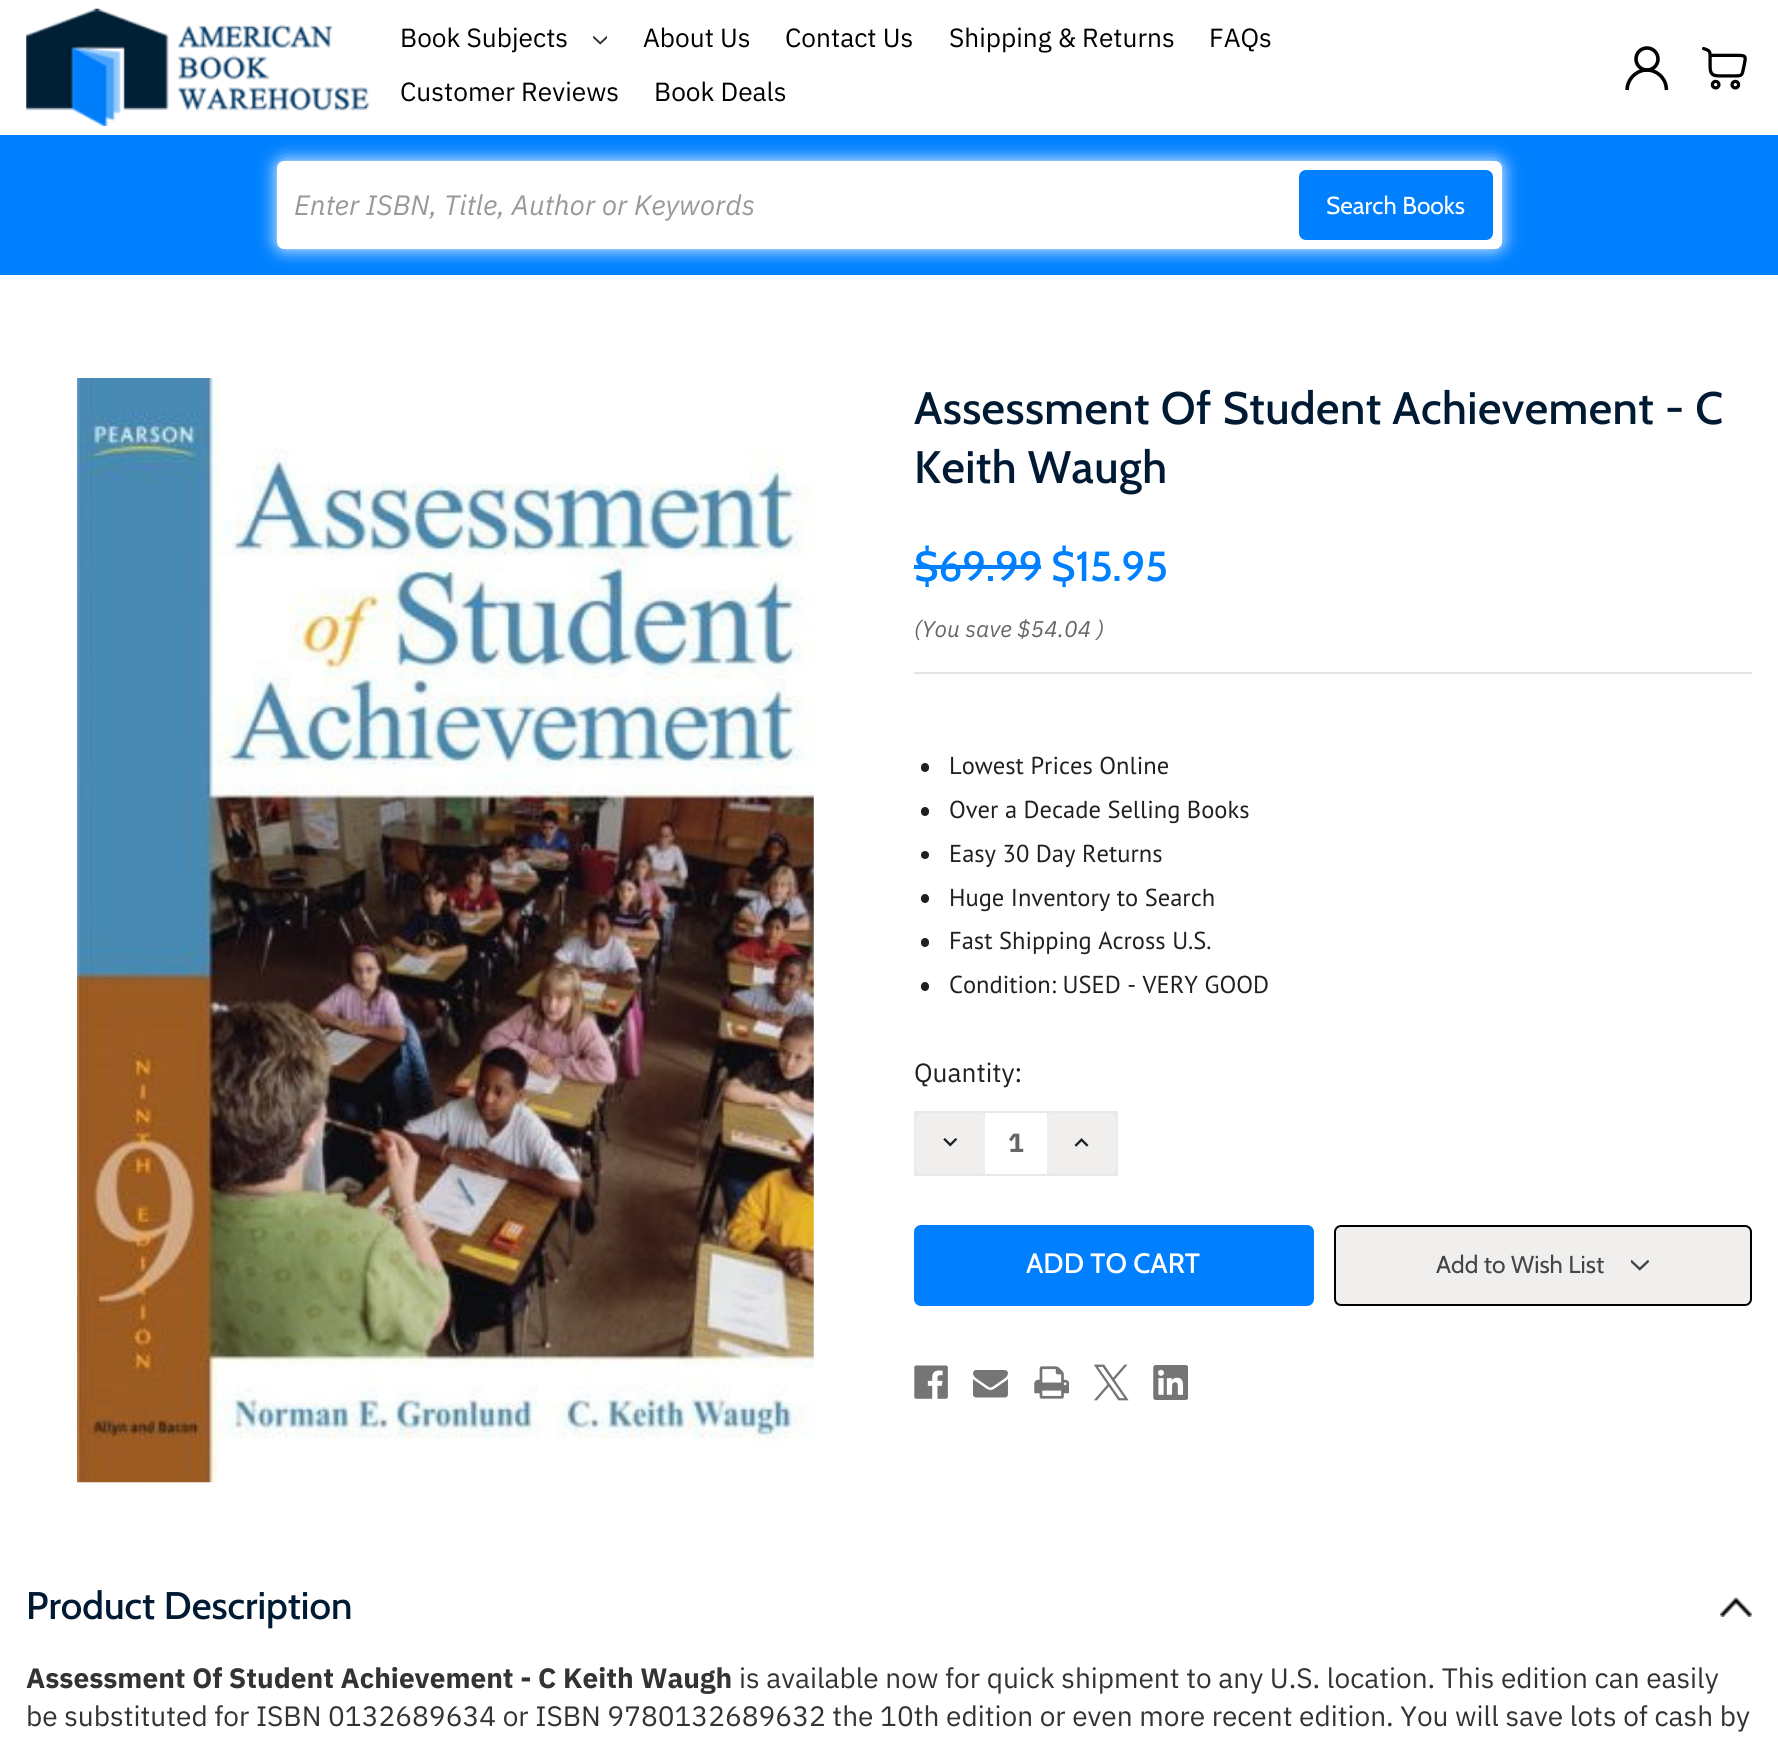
#include <cairo.h>
#include <math.h>
#include <stddef.h>


static void set_color(cairo_t *cr, unsigned color) {
    cairo_set_source_rgb(cr, (color >> 16) / 255.0, (color >> 8 & 255) / 255.0, (color & 255) / 255.0);
}

static void draw_text(cairo_t *cr, double x, double y, const char *s, const char *family, double size, int italic, int bold, unsigned color) {
    cairo_select_font_face(cr, family, italic ? CAIRO_FONT_SLANT_ITALIC : CAIRO_FONT_SLANT_NORMAL,
        bold ? CAIRO_FONT_WEIGHT_BOLD : CAIRO_FONT_WEIGHT_NORMAL);
    cairo_set_font_size(cr, size);
    set_color(cr, color);
    cairo_move_to(cr, x, y);
    cairo_show_text(cr, s);
}

static void draw_spaced(cairo_t *cr, double x, double y, const char *s, double letter, double word) {
    cairo_move_to(cr, x, y);
    while (*s) {
        char ch[5] = {0};
        int n = 0;
        do ch[n++] = *s++; while ((*s & 0xC0) == 0x80);
        cairo_show_text(cr, ch);
        cairo_rel_move_to(cr, letter + word * (*ch == ' '), 0);
    }
}

static void fill_rect(cairo_t *cr, double x, double y, double w, double h, unsigned color) {
    set_color(cr, color);
    cairo_rectangle(cr, x, y, w, h);
    cairo_fill(cr);
}

static void rounded_rect(cairo_t *cr, double x, double y, double w, double h, double r) {
    cairo_new_sub_path(cr);
    cairo_arc(cr, x + w - r, y + h - r, r, 0, M_PI / 2);
    cairo_arc(cr, x + r, y + h - r, r, M_PI / 2, M_PI);
    cairo_arc(cr, x + r, y + r, r, M_PI, 1.5 * M_PI);
    cairo_arc(cr, x + w - r, y + r, r, 1.5 * M_PI, 2 * M_PI);
    cairo_close_path(cr);
}

static void draw_shadow(cairo_t *cr, double x, double y, double w, double h, double r, double blur, double alpha) {
    cairo_push_group_with_content(cr, CAIRO_CONTENT_ALPHA);
    cairo_set_operator(cr, CAIRO_OPERATOR_SOURCE);
    for (int i = 15; i >= -15 && fmin(w, h) + blur * i / 3 > 0; i -= 2) {
        double e = blur * i / 6;
        cairo_set_source_rgba(cr, 0, 0, 0, alpha * erfc((i - 1) / 8.5) / 2);
        rounded_rect(cr, x - e, y - e, w + 2 * e, h + 2 * e, fmax(0, fmin(r + e + blur * .6, fmin(w, h) / 2 + e)));
        cairo_fill(cr);
    }
    cairo_pattern_t *soft = cairo_pop_group(cr);
    cairo_mask(cr, soft);
    cairo_pattern_destroy(soft);
}

static void draw_image(cairo_t *cr, const char *path, double x, double y, double w, double h) {
    cairo_surface_t *image = cairo_image_surface_create_from_png(path);
    cairo_save(cr);
    cairo_set_source_surface(cr, image, x, y);
    cairo_rectangle(cr, x, y, w, h);
    cairo_fill(cr);
    cairo_restore(cr);
    cairo_surface_destroy(image);
}

int main(void) {
    cairo_surface_t *surface = cairo_image_surface_create(CAIRO_FORMAT_RGB24, 1778, 1742);
    cairo_t *cr = cairo_create(surface);
    cairo_font_options_t *options = cairo_font_options_create();
    cairo_font_options_set_hint_metrics(options, CAIRO_HINT_METRICS_OFF);
    cairo_font_options_set_hint_style(options, CAIRO_HINT_STYLE_NONE);
    cairo_set_font_options(cr, options);
    cairo_set_miter_limit(cr, 4);
    set_color(cr, 0xFFFFFF);
    cairo_paint(cr);
    draw_image(cr, "assets/img1.png", 26, 8, 344, 118);
    draw_text(cr, 400, 47, "Book Subjects", "IBM Plex Sans", 26.25, 0, 0, 0x000000);
    draw_image(cr, "assets/img2.png", 593, 36, 14, 9);
    draw_text(cr, 643, 47, "About Us", "IBM Plex Sans", 26.25, 0, 0, 0x000000);
    draw_text(cr, 785, 47, "Contact Us", "IBM Plex Sans", 26.25, 0, 0, 0x000000);
    draw_text(cr, 949, 47, "Shipping & Returns", "IBM Plex Sans", 26.25, 0, 0, 0x000000);
    draw_text(cr, 1209, 47, "FAQs", "IBM Plex Sans", 26.25, 0, 0, 0x000000);
    draw_text(cr, 400, 101, "Customer Reviews", "IBM Plex Sans", 26.25, 0, 0, 0x000000);
    draw_text(cr, 654, 101, "Book Deals", "IBM Plex Sans", 26.25, 0, 0, 0x000000);
    cairo_new_path(cr);
    cairo_arc(cr, 1647, 59, 11, 0, 2 * M_PI);
    set_color(cr, 0x020202);
    cairo_set_line_width(cr, 3.6);
    cairo_stroke(cr);
    cairo_new_path(cr);
    cairo_move_to(cr, 1627, 90);
    cairo_line_to(cr, 1627.5, 86);
    cairo_curve_to(cr, 1629.5, 77, 1637.5, 70, 1647, 70);
    cairo_curve_to(cr, 1656, 70, 1664.5, 77, 1666, 86);
    cairo_line_to(cr, 1666.5, 90);
    cairo_stroke(cr);
    draw_image(cr, "assets/img3.png", 1702, 46, 45, 44);
    fill_rect(cr, 0, 135, 1778, 140, 0x0080FF);
    set_color(cr, 0xFFFFFF);
    draw_shadow(cr, 277, 161, 1225, 88, 7, 9, 1);
    set_color(cr, 0xFFFFFF);
    rounded_rect(cr, 277, 161, 1225, 88, 7);
    cairo_fill(cr);
    draw_text(cr, 294, 215, "Enter ISBN, Title, Author or Keywords", "IBM Plex Sans", 28, 1, 0, 0x999999);
    set_color(cr, 0x0080FF);
    rounded_rect(cr, 1300, 171, 192, 68, 6);
    cairo_fill_preserve(cr);
    cairo_set_line_width(cr, 2);
    cairo_stroke(cr);
    draw_text(cr, 1326, 214, "Search Books", "Cabin", 24.5, 0, 0, 0xFFFFFF);
    draw_image(cr, "assets/img4.png", 77, 378, 737, 1105);
    fill_rect(cr, 914, 672, 838, 2, 0xE5E5E5);
    cairo_select_font_face(cr, "Cabin Medium", CAIRO_FONT_SLANT_NORMAL, CAIRO_FONT_WEIGHT_NORMAL);
    cairo_set_font_size(cr, 45.5);
    set_color(cr, 0x001A33);
    draw_spaced(cr, 914, 424, "Assessment Of Student Achievement - C", 0.45, 0);
    draw_spaced(cr, 914, 483, "Keith Waugh", 0.45, 0);
    draw_text(cr, 914, 581, "$69.99", "Cabin Medium", 42, 0, 0, 0x0080FF);
    fill_rect(cr, 914, 565, 127, 4, 0x0080FF);
    draw_text(cr, 1051, 581, "$15.95", "Cabin Medium", 42, 0, 0, 0x0080FF);
    draw_text(cr, 914, 637, "(You save $54.04 )", "IBM Plex Sans", 22.75, 1, 0, 0x666666);
    set_color(cr, 0x202020);
    rounded_rect(cr, 921, 763, 8, 9, 4);
    cairo_fill(cr);
    draw_text(cr, 949, 774, "Lowest Prices Online", "PT Sans", 24.5, 0, 0, 0x202020);
    rounded_rect(cr, 921, 807, 8, 9, 4);
    cairo_fill(cr);
    draw_text(cr, 949, 818, "Over a Decade Selling Books", "PT Sans", 24.5, 0, 0, 0x202020);
    cairo_new_path(cr);
    cairo_arc(cr, 925, 855, 4, 0, 2 * M_PI);
    cairo_fill(cr);
    draw_text(cr, 949, 862, "Easy 30 Day Returns", "PT Sans", 24.5, 0, 0, 0x202020);
    rounded_rect(cr, 921, 894, 8, 9, 4);
    cairo_fill(cr);
    draw_text(cr, 949, 906, "Huge Inventory to Search", "PT Sans", 24.5, 0, 0, 0x202020);
    rounded_rect(cr, 921, 938, 8, 9, 4);
    cairo_fill(cr);
    draw_text(cr, 949, 949, "Fast Shipping Across U.S.", "PT Sans", 24.5, 0, 0, 0x202020);
    rounded_rect(cr, 921, 982, 8, 9, 4);
    cairo_fill(cr);
    draw_text(cr, 949, 993, "Condition: USED - VERY GOOD", "PT Sans", 24.5, 0, 0, 0x202020);
    draw_text(cr, 914, 1082, "Quantity:", "IBM Plex Sans", 26.25, 0, 0, 0x202020);
    fill_rect(cr, 914, 1111, 204, 65, 0xE9E9ED);
    set_color(cr, 0xF0EFEE);
    rounded_rect(cr, 915, 1113, 70, 61, 7);
    cairo_fill(cr);
    draw_image(cr, "assets/img5.png", 943, 1138, 15, 9);
    fill_rect(cr, 985, 1113, 62, 61, 0xFFFFFF);
    draw_text(cr, 1008, 1152, "1", "IBM Plex Sans", 26.25, 0, 1, 0x666666);
    set_color(cr, 0xF0EFEE);
    rounded_rect(cr, 1047, 1113, 70, 61, 7);
    cairo_fill(cr);
    draw_image(cr, "assets/img6.png", 1074, 1138, 15, 9);
    set_color(cr, 0x0080FF);
    rounded_rect(cr, 916, 1227, 396, 77, 5);
    cairo_fill_preserve(cr);
    cairo_set_line_width(cr, 4);
    cairo_stroke(cr);
    draw_text(cr, 1026, 1273, "ADD TO CART", "Cabin Medium", 28, 0, 0, 0xFFFFFF);
    set_color(cr, 0xF0EFEE);
    rounded_rect(cr, 1335, 1226, 416, 79, 6);
    cairo_fill_preserve(cr);
    set_color(cr, 0x000000);
    cairo_set_line_width(cr, 2);
    cairo_stroke(cr);
    draw_text(cr, 1436, 1273, "Add to Wish List", "Cabin", 24.5, 0, 0, 0x454545);
    draw_image(cr, "assets/img7.png", 1631, 1259, 18, 12);
    draw_image(cr, "assets/img8.png", 914, 1365, 34, 34);
    draw_image(cr, "assets/img9.png", 973, 1370, 35, 28);
    draw_image(cr, "assets/img10.png", 1034, 1366, 35, 33);
    draw_image(cr, "assets/img11.png", 1094, 1364, 35, 37);
    draw_image(cr, "assets/img12.png", 1153, 1365, 35, 35);
    draw_image(cr, "assets/img13.png", 1720, 1597, 32, 20);
    draw_text(cr, 26, 1619, "Product Description", "Cabin Medium", 38.5, 0, 0, 0x001A33);
    draw_text(cr, 26, 1688, "Assessment Of Student Achievement - C Keith Waugh", "IBM Plex Sans", 28, 0, 1, 0x333333);
    draw_text(cr, 739, 1688, "is available now for quick shipment to any U.S. location. This edition can easily", "IBM Plex Sans", 28, 0, 0, 0x333333);
    draw_text(cr, 26, 1726, "be substituted for ISBN 0132689634 or ISBN 9780132689632 the 10th edition or even more recent edition. You will save lots of cash by", "IBM Plex Sans", 28, 0, 0, 0x333333);
    cairo_surface_write_to_png(surface, "output.png");
    cairo_font_options_destroy(options);
    cairo_destroy(cr);
    cairo_surface_destroy(surface);
    return 0;
}
